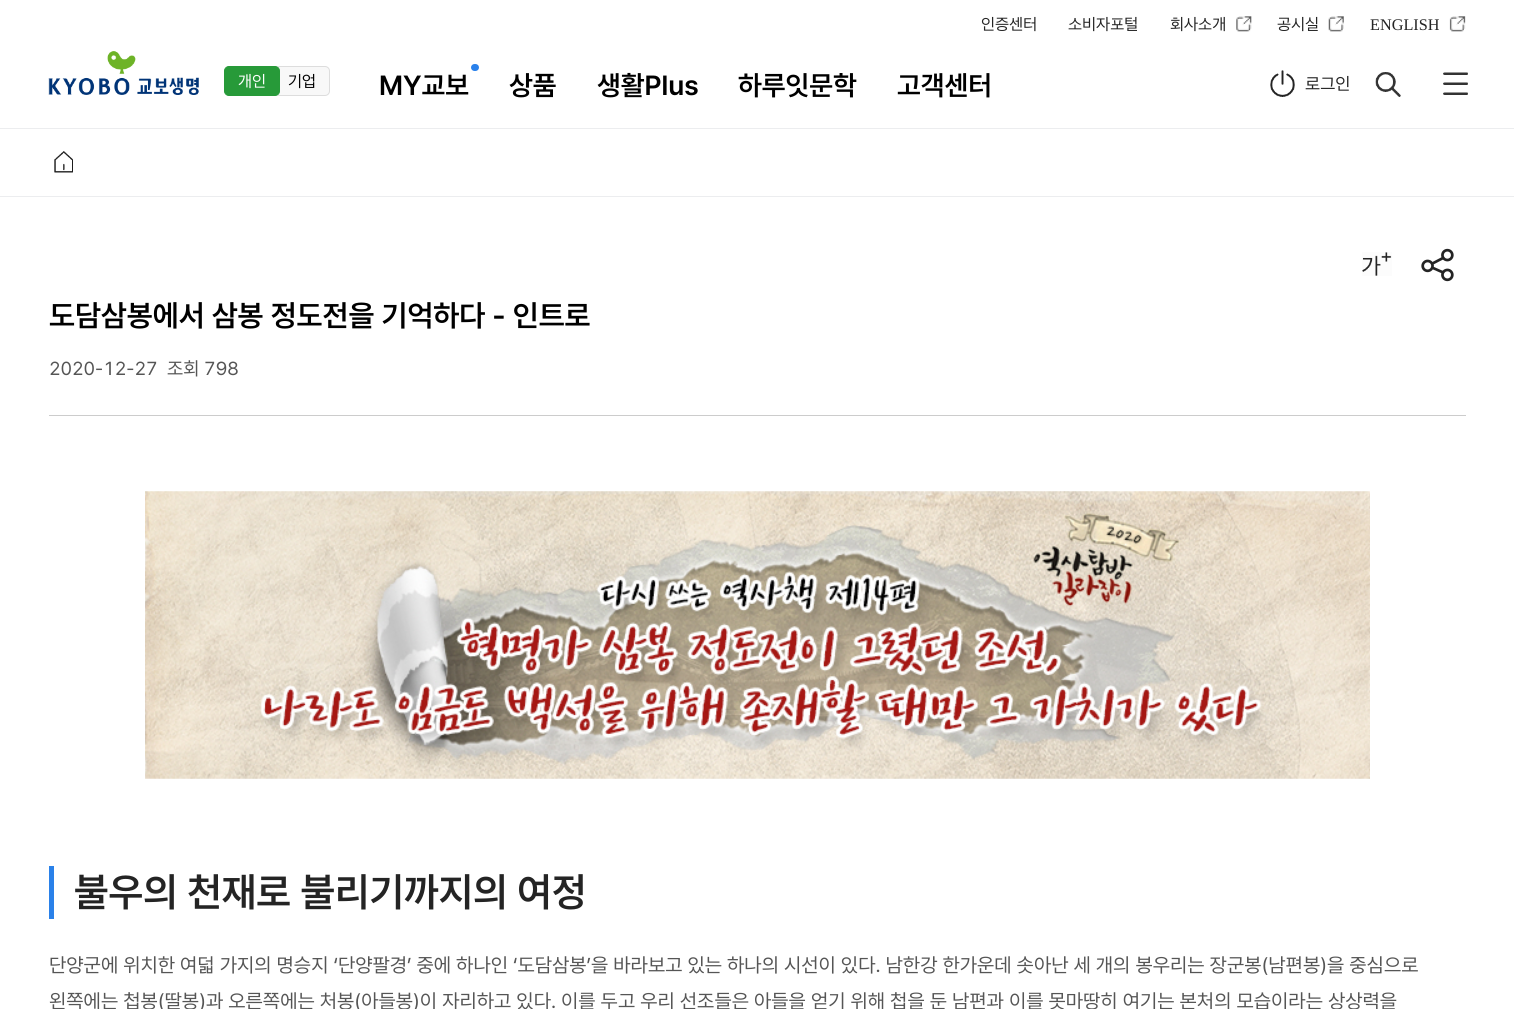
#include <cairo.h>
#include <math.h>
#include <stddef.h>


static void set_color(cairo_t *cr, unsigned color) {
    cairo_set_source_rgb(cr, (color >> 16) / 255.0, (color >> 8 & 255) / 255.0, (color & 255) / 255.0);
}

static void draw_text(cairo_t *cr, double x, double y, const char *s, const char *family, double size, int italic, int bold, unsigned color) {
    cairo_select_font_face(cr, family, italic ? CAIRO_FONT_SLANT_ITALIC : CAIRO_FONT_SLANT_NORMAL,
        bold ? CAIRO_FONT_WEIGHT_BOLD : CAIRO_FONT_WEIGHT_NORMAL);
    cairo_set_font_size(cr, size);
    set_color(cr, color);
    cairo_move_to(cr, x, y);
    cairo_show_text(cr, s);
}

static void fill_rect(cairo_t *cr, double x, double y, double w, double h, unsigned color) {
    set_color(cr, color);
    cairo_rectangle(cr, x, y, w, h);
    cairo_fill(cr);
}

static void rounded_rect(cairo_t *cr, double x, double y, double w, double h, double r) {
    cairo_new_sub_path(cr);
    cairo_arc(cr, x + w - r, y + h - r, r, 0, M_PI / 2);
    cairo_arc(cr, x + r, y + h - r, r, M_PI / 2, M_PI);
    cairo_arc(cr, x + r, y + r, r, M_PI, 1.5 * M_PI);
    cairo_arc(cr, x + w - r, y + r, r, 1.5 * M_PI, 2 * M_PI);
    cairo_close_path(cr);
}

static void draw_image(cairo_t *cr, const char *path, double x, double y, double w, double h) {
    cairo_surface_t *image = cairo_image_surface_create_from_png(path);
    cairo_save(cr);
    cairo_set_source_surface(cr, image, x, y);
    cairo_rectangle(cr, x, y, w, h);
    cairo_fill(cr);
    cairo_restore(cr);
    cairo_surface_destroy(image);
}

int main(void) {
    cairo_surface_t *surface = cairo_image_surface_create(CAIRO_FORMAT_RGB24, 1514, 1009);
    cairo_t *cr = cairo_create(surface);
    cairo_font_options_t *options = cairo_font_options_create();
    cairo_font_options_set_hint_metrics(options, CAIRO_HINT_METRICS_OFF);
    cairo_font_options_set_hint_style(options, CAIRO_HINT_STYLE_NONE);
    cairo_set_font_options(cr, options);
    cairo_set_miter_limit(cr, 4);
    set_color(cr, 0xFFFFFF);
    cairo_paint(cr);
    fill_rect(cr, 0, 128, 1514, 1, 0xECEDEF);
    draw_text(cr, 981, 30, "인증센터", "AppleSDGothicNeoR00", 16.25, 0, 0, 0x242424);
    draw_text(cr, 1068, 30, "소비자포털", "AppleSDGothicNeoR00", 16.25, 0, 0, 0x242424);
    draw_image(cr, "assets/img1.png", 1236, 16, 16, 16);
    draw_text(cr, 1170, 30, "회사소개", "AppleSDGothicNeoR00", 16.25, 0, 0, 0x242424);
    draw_image(cr, "assets/img2.png", 1328, 16, 16, 16);
    draw_text(cr, 1277, 30, "공시실", "AppleSDGothicNeoR00", 16.25, 0, 0, 0x242424);
    draw_image(cr, "assets/img3.png", 1449, 16, 17, 16);
    draw_text(cr, 1370, 30, "ENGLISH", "Liberation Serif", 16.25, 0, 0, 0x242424);
    draw_image(cr, "assets/img4.png", 48, 51, 151, 44);
    set_color(cr, 0xF8F8F8);
    rounded_rect(cr, 275.5, 66.5, 54, 29, 4.5);
    cairo_fill_preserve(cr);
    set_color(cr, 0xDDDDDD);
    cairo_set_line_width(cr, 1);
    cairo_stroke(cr);
    set_color(cr, 0x279A39);
    rounded_rect(cr, 224.5, 66.5, 55, 29, 4.5);
    cairo_fill_preserve(cr);
    cairo_stroke(cr);
    draw_text(cr, 238, 87, "개인", "AppleSDGothicNeoR00", 16.25, 0, 0, 0xFFFFFF);
    draw_text(cr, 288, 87, "기업", "AppleSDGothicNeoR00", 16.25, 0, 0, 0x000000);
    set_color(cr, 0x2A81EB);
    rounded_rect(cr, 471, 64, 8, 7, 3.5);
    cairo_fill(cr);
    draw_text(cr, 379, 95, "MY교보", "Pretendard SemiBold", 27.5, 0, 0, 0x000000);
    draw_text(cr, 509, 95, "상품", "Pretendard SemiBold", 27.5, 0, 0, 0x000000);
    draw_text(cr, 597, 95, "생활Plus", "Pretendard SemiBold", 27.5, 0, 0, 0x000000);
    draw_text(cr, 738, 95, "하루잇문학", "Pretendard SemiBold", 27.5, 0, 0, 0x000000);
    draw_text(cr, 897, 95, "고객센터", "Pretendard SemiBold", 27.5, 0, 0, 0x000000);
    draw_image(cr, "assets/img5.png", 1270, 70, 25, 27);
    draw_text(cr, 1305, 90, "로그인", "AppleSDGothicNeoR00", 17.5, 0, 0, 0x242424);
    draw_image(cr, "assets/img6.png", 1375, 72, 26, 25);
    draw_image(cr, "assets/img7.png", 1443, 72, 25, 23);
    fill_rect(cr, 0, 196, 1514, 1, 0xECEDEF);
    draw_image(cr, "assets/img8.png", 54, 151, 19, 22);
    fill_rect(cr, 49, 415, 1417, 1, 0xCCCCCC);
    draw_image(cr, "assets/img9.png", 1362, 252, 30, 24);
    draw_image(cr, "assets/img10.png", 1421, 248, 33, 34);
    draw_text(cr, 49, 326, "도담삼봉에서 삼봉 정도전을 기억하다 - 인트로", "Pretendard SemiBold", 30, 0, 0, 0x000000);
    draw_text(cr, 49, 375, "2020-12-27", "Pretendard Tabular", 18.75, 0, 0, 0x555555);
    draw_text(cr, 167, 375, "조회 798", "Pretendard Tabular", 18.75, 0, 0, 0x555555);
    draw_image(cr, "assets/img11.png", 145, 491, 1225, 288);
    fill_rect(cr, 49, 866, 5, 53, 0x2A81E9);
    draw_text(cr, 74, 906, "불우의 천재로 불리기까지의 여정", "Pretendard SemiBold", 40, 0, 0, 0x242424);
    draw_text(cr, 49, 972, "단양군에 위치한 여덟 가지의 명승지 ‘단양팔경’ 중에 하나인 ‘도담삼봉’을 바라보고 있는 하나의 시선이 있다. 남한강 한가운데 솟아난 세 개의 봉우리는 장군봉(남편봉)을 중심으로", "Pretendard", 20, 0, 0, 0x555555);
    draw_text(cr, 49, 1008, "왼쪽에는 첩봉(딸봉)과 오른쪽에는 처봉(아들봉)이 자리하고 있다. 이를 두고 우리 선조들은 아들을 얻기 위해 첩을 둔 남편과 이를 못마땅히 여기는 본처의 모습이라는 상상력을", "Pretendard", 20, 0, 0, 0x555555);
    cairo_surface_write_to_png(surface, "output.png");
    cairo_font_options_destroy(options);
    cairo_destroy(cr);
    cairo_surface_destroy(surface);
    return 0;
}
